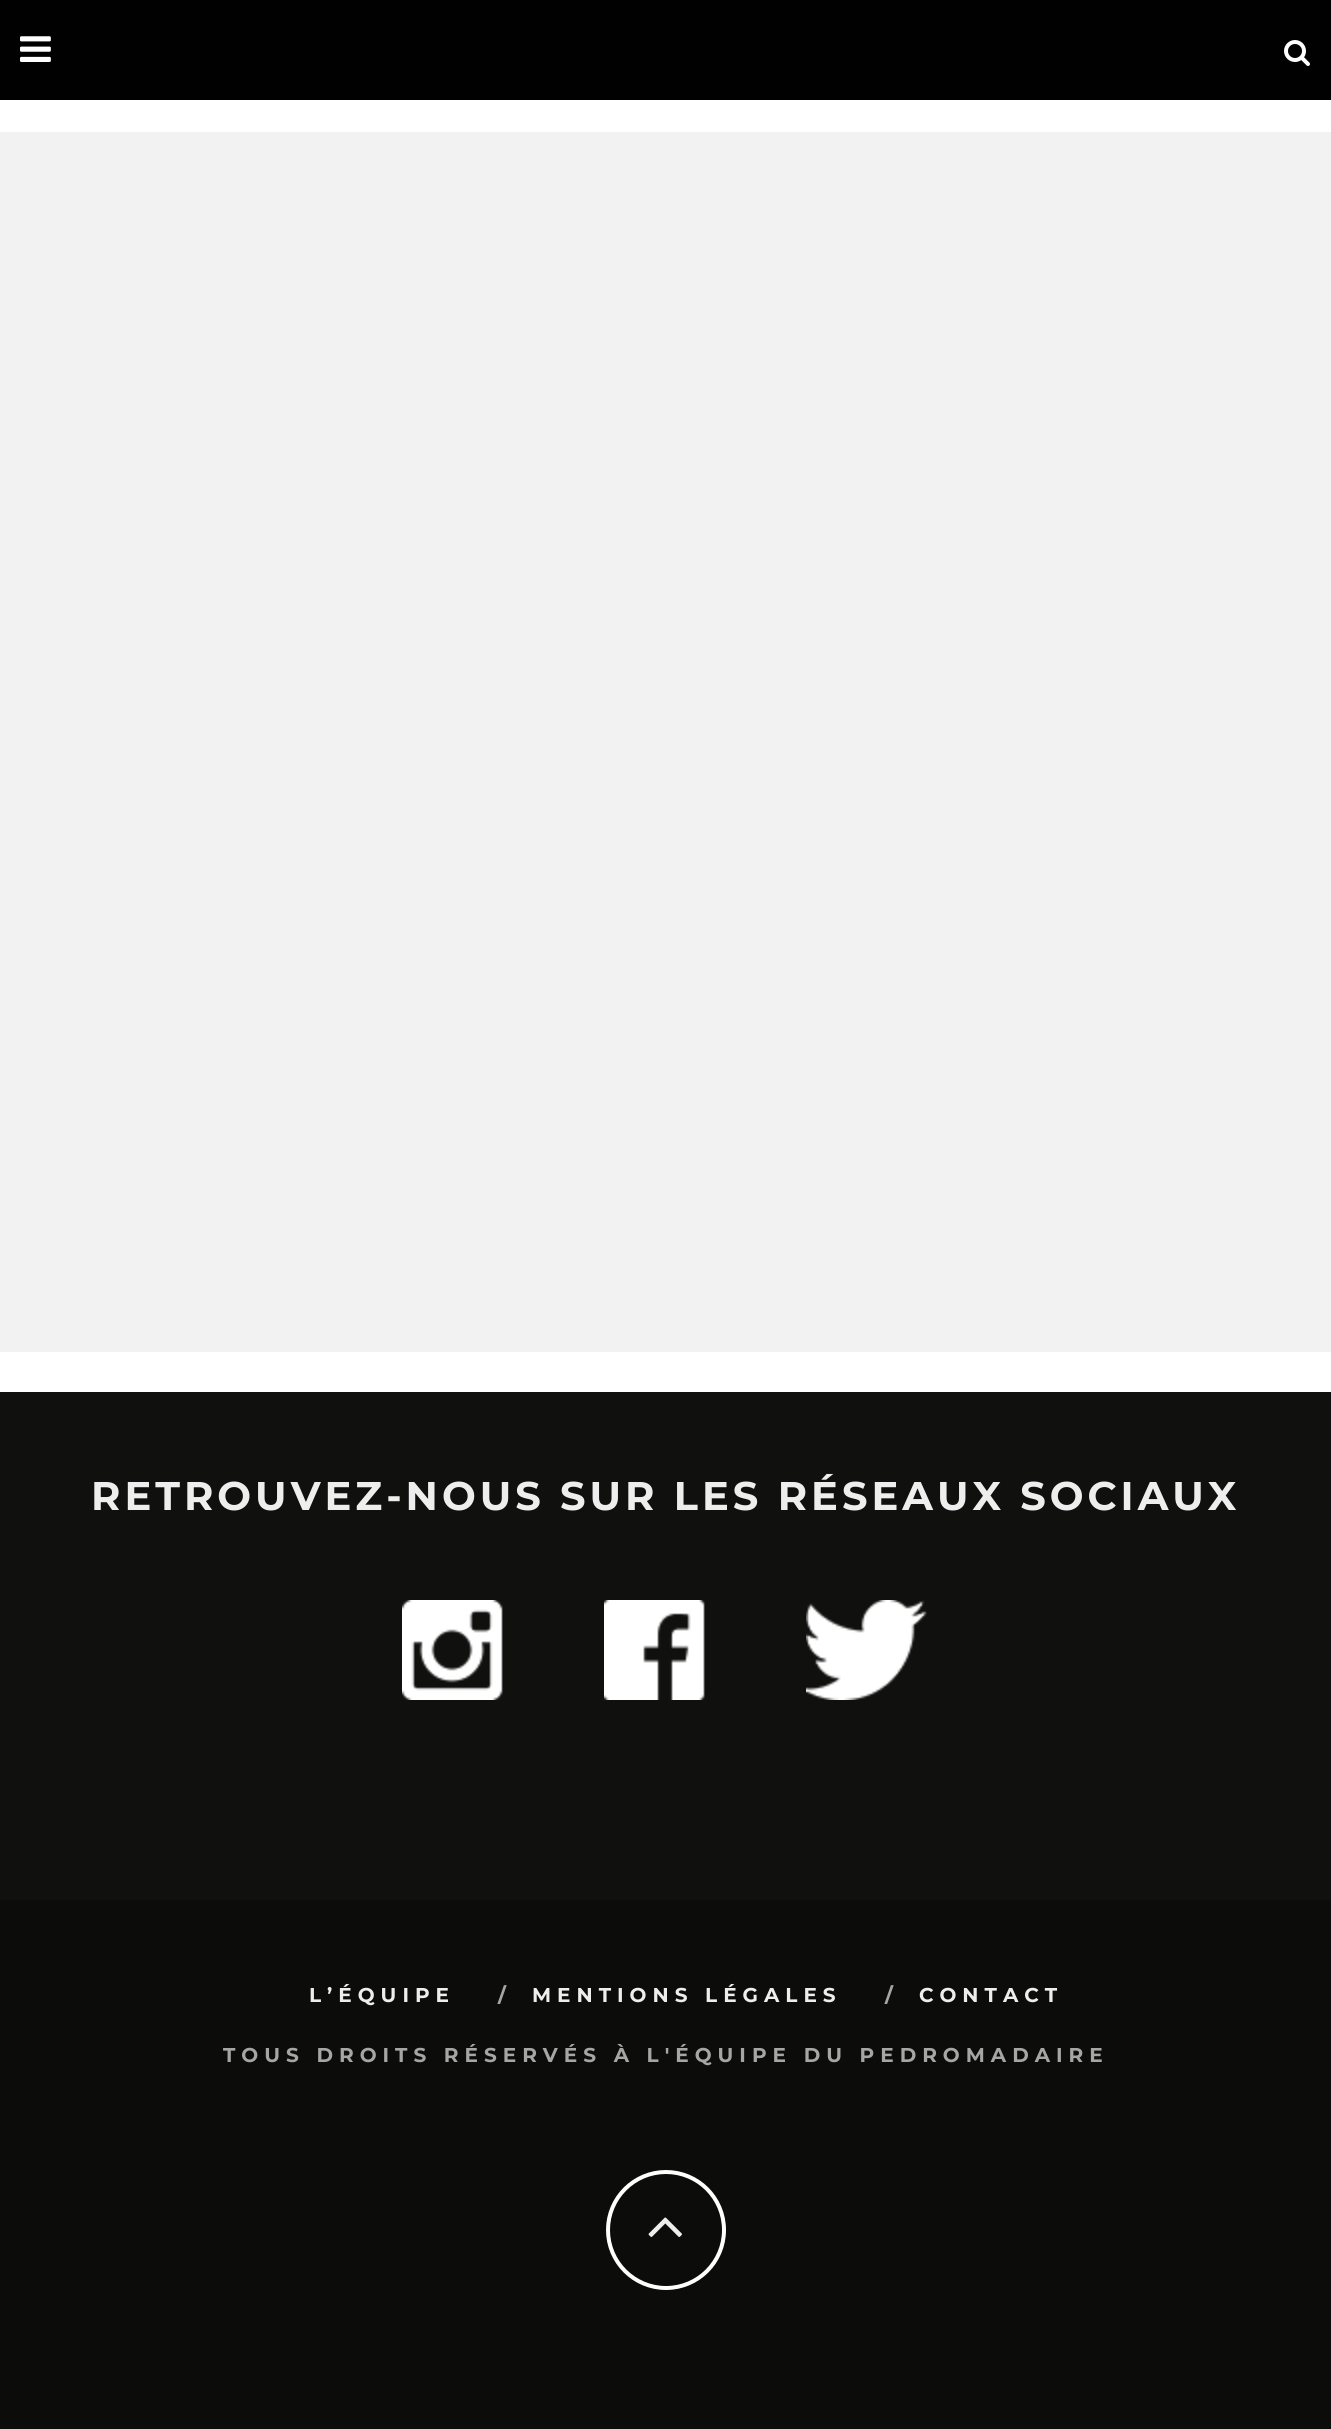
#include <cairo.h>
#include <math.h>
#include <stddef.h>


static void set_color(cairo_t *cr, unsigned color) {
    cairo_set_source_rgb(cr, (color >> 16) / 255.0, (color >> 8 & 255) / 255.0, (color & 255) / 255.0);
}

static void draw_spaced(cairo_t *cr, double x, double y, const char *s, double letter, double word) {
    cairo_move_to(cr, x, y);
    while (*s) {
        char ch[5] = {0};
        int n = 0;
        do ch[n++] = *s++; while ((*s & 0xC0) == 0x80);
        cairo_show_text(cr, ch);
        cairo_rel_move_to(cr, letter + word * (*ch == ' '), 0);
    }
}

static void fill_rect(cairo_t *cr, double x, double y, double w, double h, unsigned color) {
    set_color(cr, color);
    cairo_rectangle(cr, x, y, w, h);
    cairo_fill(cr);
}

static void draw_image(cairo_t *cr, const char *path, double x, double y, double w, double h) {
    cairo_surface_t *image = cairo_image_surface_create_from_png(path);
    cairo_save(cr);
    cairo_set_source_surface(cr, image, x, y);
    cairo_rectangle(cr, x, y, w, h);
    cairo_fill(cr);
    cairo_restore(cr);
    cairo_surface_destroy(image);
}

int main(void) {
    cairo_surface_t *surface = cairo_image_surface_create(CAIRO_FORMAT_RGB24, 1331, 2429);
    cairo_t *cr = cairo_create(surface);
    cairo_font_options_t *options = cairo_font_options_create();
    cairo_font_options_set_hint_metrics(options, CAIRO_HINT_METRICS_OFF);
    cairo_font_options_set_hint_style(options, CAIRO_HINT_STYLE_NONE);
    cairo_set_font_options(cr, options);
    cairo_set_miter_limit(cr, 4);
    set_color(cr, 0xFFFFFF);
    cairo_paint(cr);
    fill_rect(cr, 0, 0, 1331, 100, 0x010101);
    draw_image(cr, "assets/img1.png", 20, 36, 31, 26);
    draw_image(cr, "assets/img2.png", 1284, 40, 26, 26);
    fill_rect(cr, 0, 132, 1331, 1220, 0xF2F2F2);
    fill_rect(cr, 0, 1392, 1331, 508, 0x10100F);
    cairo_select_font_face(cr, "Montserrat", CAIRO_FONT_SLANT_NORMAL, CAIRO_FONT_WEIGHT_BOLD);
    cairo_set_font_size(cr, 40);
    set_color(cr, 0xEEEEEE);
    draw_spaced(cr, 91, 1510, "RETROUVEZ-NOUS SUR LES RÉSEAUX SOCIAUX", 4, 0);
    draw_image(cr, "assets/img3.png", 402, 1600, 101, 100);
    draw_image(cr, "assets/img4.png", 604, 1600, 101, 100);
    draw_image(cr, "assets/img5.png", 806, 1600, 121, 100);
    fill_rect(cr, 0, 1900, 1331, 529, 0x0C0C0B);
    cairo_set_font_size(cr, 20);
    set_color(cr, 0xEEEEEE);
    draw_spaced(cr, 309, 2002, "L’ÉQUIPE", 6, 0);
    set_color(cr, 0xA6A6A6);
    draw_spaced(cr, 498, 2002, "/", 6, 0);
    set_color(cr, 0xEEEEEE);
    draw_spaced(cr, 532, 2002, "MENTIONS LÉGALES", 6, 0);
    set_color(cr, 0xA6A6A6);
    draw_spaced(cr, 885, 2002, "/", 6, 0);
    set_color(cr, 0xEEEEEE);
    draw_spaced(cr, 919, 2002, "CONTACT", 6, 0);
    set_color(cr, 0xA6A6A6);
    draw_spaced(cr, 223, 2062, "TOUS DROITS RÉSERVÉS À L'ÉQUIPE DU PEDROMADAIRE", 6, 0);
    cairo_new_path(cr);
    cairo_arc(cr, 666, 2230, 58, 0, 2 * M_PI);
    set_color(cr, 0xFFFFFF);
    cairo_set_line_width(cr, 4);
    cairo_stroke(cr);
    draw_image(cr, "assets/img6.png", 648, 2217, 34, 20);
    cairo_surface_write_to_png(surface, "output.png");
    cairo_font_options_destroy(options);
    cairo_destroy(cr);
    cairo_surface_destroy(surface);
    return 0;
}
